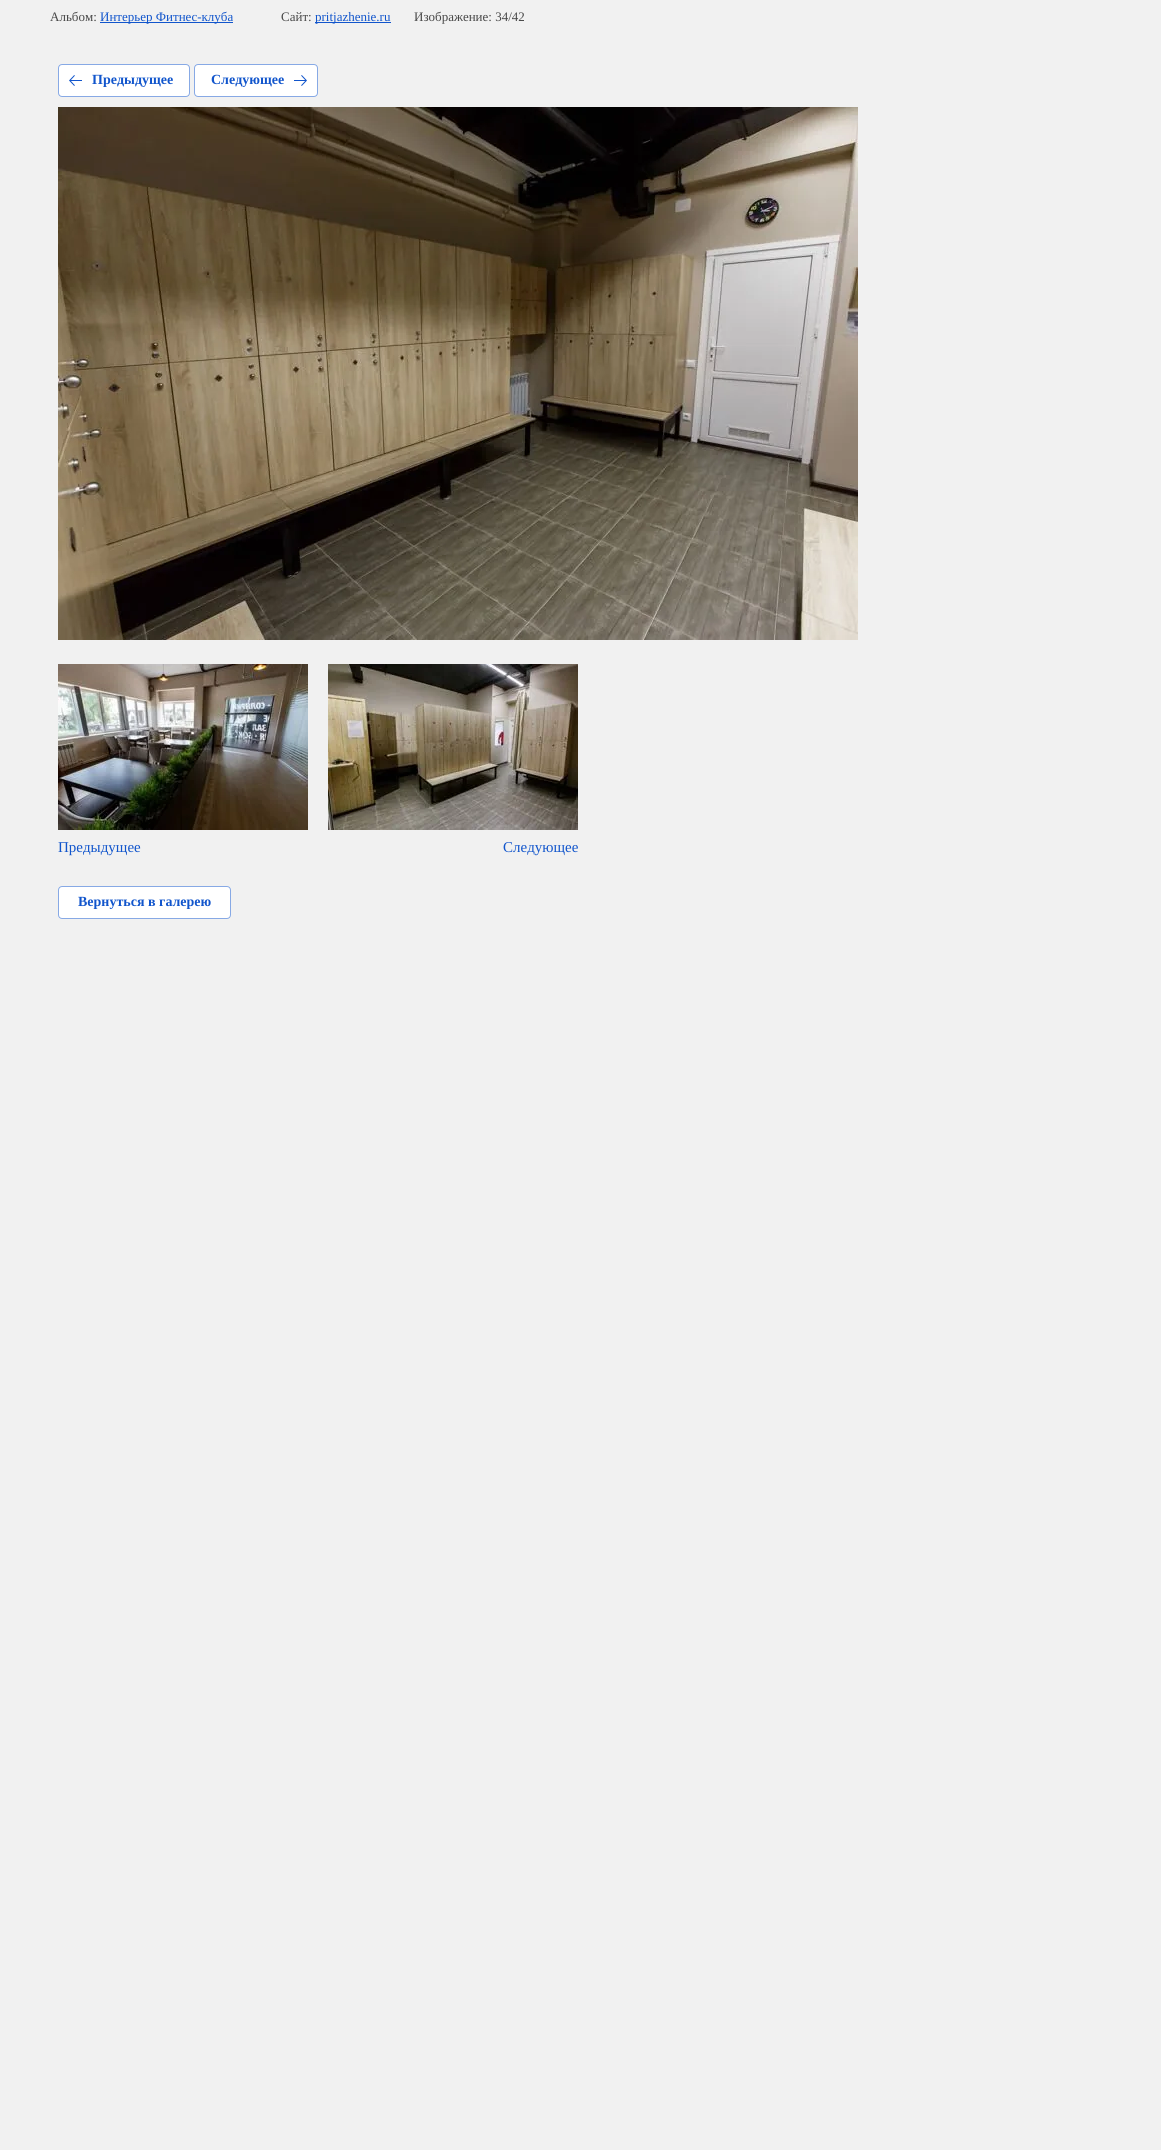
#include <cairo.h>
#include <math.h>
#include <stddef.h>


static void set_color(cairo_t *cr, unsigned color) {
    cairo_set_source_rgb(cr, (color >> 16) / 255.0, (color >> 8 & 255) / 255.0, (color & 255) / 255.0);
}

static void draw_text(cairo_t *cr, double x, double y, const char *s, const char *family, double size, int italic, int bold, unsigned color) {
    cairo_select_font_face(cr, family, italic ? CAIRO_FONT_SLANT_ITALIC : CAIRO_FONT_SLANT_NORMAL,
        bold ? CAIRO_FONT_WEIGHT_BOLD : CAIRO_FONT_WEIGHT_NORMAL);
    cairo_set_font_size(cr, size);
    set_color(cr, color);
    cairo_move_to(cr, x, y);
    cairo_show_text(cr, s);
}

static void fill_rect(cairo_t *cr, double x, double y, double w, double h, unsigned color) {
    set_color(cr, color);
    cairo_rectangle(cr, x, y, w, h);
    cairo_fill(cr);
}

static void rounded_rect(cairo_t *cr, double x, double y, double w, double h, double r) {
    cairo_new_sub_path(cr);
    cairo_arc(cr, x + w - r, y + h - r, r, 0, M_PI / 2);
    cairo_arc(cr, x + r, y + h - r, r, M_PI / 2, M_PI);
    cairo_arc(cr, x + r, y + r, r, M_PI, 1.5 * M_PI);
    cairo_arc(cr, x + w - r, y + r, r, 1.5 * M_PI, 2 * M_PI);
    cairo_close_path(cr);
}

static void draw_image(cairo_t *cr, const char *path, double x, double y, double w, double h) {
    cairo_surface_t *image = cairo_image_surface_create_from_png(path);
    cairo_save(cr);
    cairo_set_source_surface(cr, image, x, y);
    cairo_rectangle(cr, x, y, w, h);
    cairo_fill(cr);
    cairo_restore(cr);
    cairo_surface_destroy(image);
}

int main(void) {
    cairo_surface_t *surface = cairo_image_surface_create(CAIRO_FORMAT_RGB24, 1161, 2150);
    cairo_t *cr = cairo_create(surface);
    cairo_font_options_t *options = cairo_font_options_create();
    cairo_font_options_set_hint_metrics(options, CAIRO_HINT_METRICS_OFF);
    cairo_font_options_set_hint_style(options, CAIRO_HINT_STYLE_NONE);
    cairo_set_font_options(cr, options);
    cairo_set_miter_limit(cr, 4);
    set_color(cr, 0xF1F1F1);
    cairo_paint(cr);
    draw_text(cr, 50, 21, "Альбом:", "Liberation Serif", 13, 0, 0, 0x484848);
    fill_rect(cr, 100, 22, 133, 1, 0x1155CC);
    draw_text(cr, 100, 21, "Интерьер Фитнес-клуба", "Liberation Serif", 13, 0, 0, 0x1155CC);
    draw_text(cr, 281, 21, "Сайт:", "Liberation Serif", 13, 0, 0, 0x484848);
    fill_rect(cr, 315, 22, 76, 1, 0x1155CC);
    draw_text(cr, 315, 21, "pritjazhenie.ru", "Liberation Serif", 13, 0, 0, 0x1155CC);
    draw_text(cr, 414, 21, "Изображение: 34/42", "Liberation Serif", 13, 0, 0, 0x484848);
    set_color(cr, 0xFFFFFF);
    rounded_rect(cr, 58, 64, 132, 33, 4);
    cairo_fill(cr);
    rounded_rect(cr, 58.5, 64.5, 131, 32, 3.5);
    cairo_set_source_rgba(cr, 0.067, 0.333, 0.8, 0.5);
    cairo_set_line_width(cr, 1);
    cairo_stroke(cr);
    draw_image(cr, "assets/img1.png", 69, 75, 13, 11);
    draw_text(cr, 92, 84, "Предыдущее", "Liberation Serif", 14, 0, 1, 0x1155CC);
    set_color(cr, 0xFFFFFF);
    rounded_rect(cr, 194, 64, 124, 33, 4);
    cairo_fill(cr);
    rounded_rect(cr, 194.5, 64.5, 123, 32, 3.5);
    cairo_set_source_rgba(cr, 0.067, 0.333, 0.8, 0.5);
    cairo_stroke(cr);
    draw_text(cr, 211, 84, "Следующее", "Liberation Serif", 14, 0, 1, 0x1155CC);
    draw_image(cr, "assets/img2.png", 294, 75, 13, 11);
    draw_image(cr, "assets/img3.png", 58, 107, 800, 533);
    draw_image(cr, "assets/img4.png", 58, 664, 250, 166);
    draw_text(cr, 58, 852, "Предыдущее", "Liberation Serif", 15, 0, 0, 0x1155CC);
    draw_image(cr, "assets/img5.png", 328, 664, 250, 166);
    draw_text(cr, 503, 852, "Следующее", "Liberation Serif", 15, 0, 0, 0x1155CC);
    set_color(cr, 0xFFFFFF);
    rounded_rect(cr, 58, 886, 173, 33, 4);
    cairo_fill(cr);
    rounded_rect(cr, 58.5, 886.5, 172, 32, 3.5);
    cairo_set_source_rgba(cr, 0.067, 0.333, 0.8, 0.5);
    cairo_stroke(cr);
    draw_text(cr, 78, 906, "Вернуться в галерею", "Liberation Serif", 14, 0, 1, 0x1155CC);
    cairo_surface_write_to_png(surface, "output.png");
    cairo_font_options_destroy(options);
    cairo_destroy(cr);
    cairo_surface_destroy(surface);
    return 0;
}
